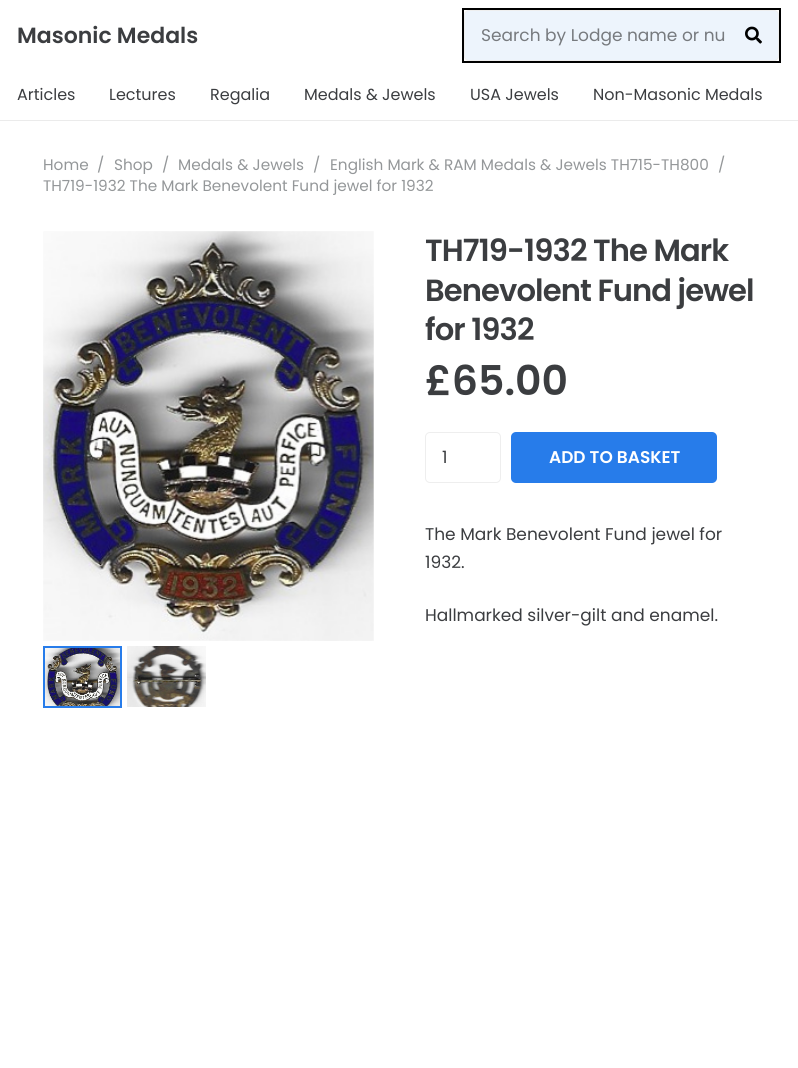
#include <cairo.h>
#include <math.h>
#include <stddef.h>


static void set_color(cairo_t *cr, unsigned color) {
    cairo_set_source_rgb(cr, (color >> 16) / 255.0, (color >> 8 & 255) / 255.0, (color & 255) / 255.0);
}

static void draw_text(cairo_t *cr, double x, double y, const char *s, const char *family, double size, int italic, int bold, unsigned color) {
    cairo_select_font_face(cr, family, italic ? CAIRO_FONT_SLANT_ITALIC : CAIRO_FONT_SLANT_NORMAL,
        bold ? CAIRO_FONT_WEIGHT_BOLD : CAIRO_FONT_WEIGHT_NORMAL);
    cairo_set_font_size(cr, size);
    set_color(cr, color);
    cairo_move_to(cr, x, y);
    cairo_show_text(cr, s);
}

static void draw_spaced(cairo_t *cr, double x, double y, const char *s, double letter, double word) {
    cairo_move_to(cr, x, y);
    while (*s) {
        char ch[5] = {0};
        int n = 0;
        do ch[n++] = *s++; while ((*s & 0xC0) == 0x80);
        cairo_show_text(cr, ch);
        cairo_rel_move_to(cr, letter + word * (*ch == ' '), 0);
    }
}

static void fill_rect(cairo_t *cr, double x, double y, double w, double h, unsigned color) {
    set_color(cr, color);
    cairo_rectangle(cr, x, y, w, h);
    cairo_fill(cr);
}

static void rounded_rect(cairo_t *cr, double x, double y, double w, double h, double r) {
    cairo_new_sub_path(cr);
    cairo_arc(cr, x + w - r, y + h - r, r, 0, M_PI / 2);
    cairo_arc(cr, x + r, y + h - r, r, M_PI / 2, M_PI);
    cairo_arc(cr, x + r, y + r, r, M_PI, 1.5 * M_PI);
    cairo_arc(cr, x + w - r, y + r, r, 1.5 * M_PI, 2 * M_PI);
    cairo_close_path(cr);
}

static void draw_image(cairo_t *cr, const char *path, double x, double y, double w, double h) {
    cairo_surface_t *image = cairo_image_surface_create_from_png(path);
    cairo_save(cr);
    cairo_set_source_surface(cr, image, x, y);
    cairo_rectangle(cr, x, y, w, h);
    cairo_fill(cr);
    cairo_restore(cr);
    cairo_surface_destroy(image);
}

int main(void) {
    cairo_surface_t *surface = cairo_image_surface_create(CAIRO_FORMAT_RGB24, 798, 1068);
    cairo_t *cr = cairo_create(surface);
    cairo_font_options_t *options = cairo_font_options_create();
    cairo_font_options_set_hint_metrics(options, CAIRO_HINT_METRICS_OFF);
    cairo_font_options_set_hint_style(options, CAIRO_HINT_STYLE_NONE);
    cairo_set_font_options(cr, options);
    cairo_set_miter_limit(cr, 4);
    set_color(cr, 0xFFFFFF);
    cairo_paint(cr);
    draw_text(cr, 17, 43, "Masonic Medals", "Poppins SemiBold", 22, 0, 0, 0x3B3D40);
    cairo_rectangle(cr, 463, 9, 317, 53);
    set_color(cr, 0x000000);
    cairo_stroke(cr);
    set_color(cr, 0xEDF4FC);
    rounded_rect(cr, 464.5, 10.5, 314, 50, 4.5);
    cairo_fill_preserve(cr);
    set_color(cr, 0xEEEEEE);
    cairo_set_line_width(cr, 1);
    cairo_stroke(cr);
    draw_text(cr, 481, 41, "Search by Lodge name or nu", "Poppins", 17, 0, 0, 0x777A7E);
    draw_image(cr, "assets/img1.png", 745, 26, 17, 18);
    fill_rect(cr, 0, 120, 798, 1, 0xEBEBEB);
    draw_text(cr, 17, 100, "Articles", "Poppins", 16, 0, 0, 0x3B3D40);
    draw_text(cr, 109, 100, "Lectures", "Poppins", 16, 0, 0, 0x3B3D40);
    draw_text(cr, 210, 100, "Regalia", "Poppins", 16, 0, 0, 0x3B3D40);
    draw_text(cr, 304, 100, "Medals & Jewels", "Poppins", 16, 0, 0, 0x3B3D40);
    draw_text(cr, 470, 100, "USA Jewels", "Poppins", 16, 0, 0, 0x3B3D40);
    draw_text(cr, 593, 100, "Non-Masonic Medals", "Poppins", 16, 0, 0, 0x3B3D40);
    draw_text(cr, 43, 170, "Home", "Poppins", 15.3, 0, 0, 0x949799);
    draw_text(cr, 97, 170, "/", "Poppins", 15.3, 0, 0, 0x949799);
    draw_text(cr, 114, 170, "Shop", "Poppins", 15.3, 0, 0, 0x949799);
    draw_text(cr, 162, 170, "/", "Poppins", 15.3, 0, 0, 0x949799);
    draw_text(cr, 178, 170, "Medals & Jewels", "Poppins", 15.3, 0, 0, 0x949799);
    draw_text(cr, 313, 170, "/", "Poppins", 15.3, 0, 0, 0x949799);
    draw_text(cr, 330, 170, "English Mark & RAM Medals & Jewels TH715-TH800", "Poppins", 15.3, 0, 0, 0x949799);
    draw_text(cr, 718, 170, "/", "Poppins", 15.3, 0, 0, 0x949799);
    draw_text(cr, 43, 191, "TH719-1932 The Mark Benevolent Fund jewel for 1932", "Poppins", 15.3, 0, 0, 0x949799);
    draw_image(cr, "assets/img2.png", 43, 231, 331, 410);
    draw_image(cr, "assets/img3.png", 373, 371, 1, 128);
    cairo_rectangle(cr, 44, 647, 77, 60);
    set_color(cr, 0x277CEA);
    cairo_set_line_width(cr, 2);
    cairo_stroke(cr);
    draw_image(cr, "assets/img4.png", 45, 648, 75, 58);
    draw_image(cr, "assets/img5.png", 127, 646, 79, 61);
    cairo_select_font_face(cr, "Poppins SemiBold", CAIRO_FONT_SLANT_NORMAL, CAIRO_FONT_WEIGHT_NORMAL);
    cairo_set_font_size(cr, 30.6);
    set_color(cr, 0x3B3D40);
    draw_spaced(cr, 425, 261, "TH719-1932 The Mark", -0.9, 0);
    draw_spaced(cr, 425, 301, "Benevolent Fund jewel", -0.9, 0);
    draw_spaced(cr, 425, 340, "for 1932", -0.9, 0);
    draw_text(cr, 425, 395, "£65.00", "Poppins SemiBold", 41, 0, 0, 0x3B3D40);
    rounded_rect(cr, 425.5, 432.5, 75, 50, 4.5);
    set_color(cr, 0xEEEEEE);
    cairo_set_line_width(cr, 1);
    cairo_stroke(cr);
    draw_text(cr, 442, 463, "1", "Poppins", 17, 0, 0, 0x3B3D40);
    set_color(cr, 0x277CEA);
    rounded_rect(cr, 511, 432, 206, 51, 5);
    cairo_fill(cr);
    draw_text(cr, 549, 463, "ADD TO BASKET", "Poppins SemiBold", 17, 0, 0, 0xFFFFFF);
    draw_text(cr, 425, 540, "The Mark Benevolent Fund jewel for", "Poppins", 17, 0, 0, 0x3B3D40);
    draw_text(cr, 425, 568, "1932.", "Poppins", 17, 0, 0, 0x3B3D40);
    draw_text(cr, 425, 621, "Hallmarked silver-gilt and enamel.", "Poppins", 17, 0, 0, 0x3B3D40);
    cairo_surface_write_to_png(surface, "output.png");
    cairo_font_options_destroy(options);
    cairo_destroy(cr);
    cairo_surface_destroy(surface);
    return 0;
}
